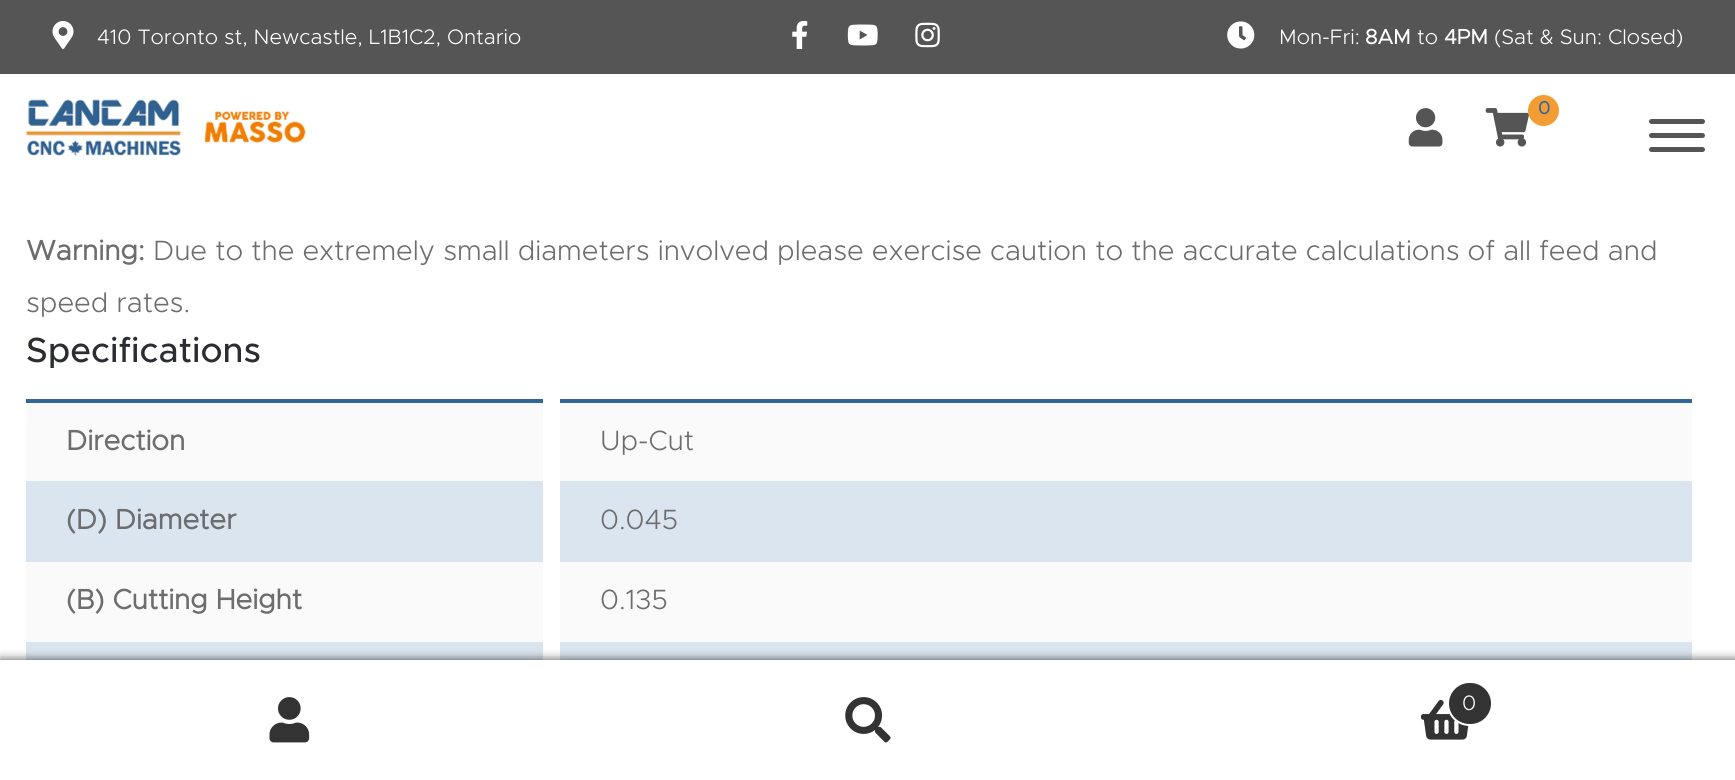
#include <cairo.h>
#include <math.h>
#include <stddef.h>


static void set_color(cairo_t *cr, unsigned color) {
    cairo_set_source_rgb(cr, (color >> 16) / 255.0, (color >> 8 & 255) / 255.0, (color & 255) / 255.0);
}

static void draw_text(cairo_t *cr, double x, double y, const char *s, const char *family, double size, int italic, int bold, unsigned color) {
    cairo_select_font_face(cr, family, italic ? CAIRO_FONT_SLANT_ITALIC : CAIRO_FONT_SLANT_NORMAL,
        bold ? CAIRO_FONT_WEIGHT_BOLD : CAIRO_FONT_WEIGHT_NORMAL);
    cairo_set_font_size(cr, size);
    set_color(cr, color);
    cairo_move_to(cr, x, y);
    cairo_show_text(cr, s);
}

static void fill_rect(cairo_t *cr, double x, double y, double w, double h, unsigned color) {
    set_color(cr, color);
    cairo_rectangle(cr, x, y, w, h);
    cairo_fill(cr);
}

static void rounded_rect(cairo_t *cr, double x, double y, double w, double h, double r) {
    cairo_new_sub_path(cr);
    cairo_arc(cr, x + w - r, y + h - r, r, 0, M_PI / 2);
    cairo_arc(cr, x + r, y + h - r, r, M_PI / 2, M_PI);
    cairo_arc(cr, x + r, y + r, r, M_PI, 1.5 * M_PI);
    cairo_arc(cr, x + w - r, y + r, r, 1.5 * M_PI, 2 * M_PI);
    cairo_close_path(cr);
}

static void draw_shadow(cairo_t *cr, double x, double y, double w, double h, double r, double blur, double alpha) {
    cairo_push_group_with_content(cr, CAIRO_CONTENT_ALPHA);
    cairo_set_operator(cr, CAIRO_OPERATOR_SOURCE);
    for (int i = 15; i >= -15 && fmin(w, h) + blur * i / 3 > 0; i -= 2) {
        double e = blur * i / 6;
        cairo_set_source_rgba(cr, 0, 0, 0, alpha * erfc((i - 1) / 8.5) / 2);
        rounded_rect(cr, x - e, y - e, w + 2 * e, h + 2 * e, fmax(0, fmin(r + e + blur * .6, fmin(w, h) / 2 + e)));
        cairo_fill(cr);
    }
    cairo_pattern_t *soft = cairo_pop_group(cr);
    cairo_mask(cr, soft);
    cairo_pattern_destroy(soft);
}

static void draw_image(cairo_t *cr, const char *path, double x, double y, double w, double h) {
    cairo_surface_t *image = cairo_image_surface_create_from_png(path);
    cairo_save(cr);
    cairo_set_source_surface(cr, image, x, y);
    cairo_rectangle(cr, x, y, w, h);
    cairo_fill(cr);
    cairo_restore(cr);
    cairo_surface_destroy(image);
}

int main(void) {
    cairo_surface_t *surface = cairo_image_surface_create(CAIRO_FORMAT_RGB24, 1735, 780);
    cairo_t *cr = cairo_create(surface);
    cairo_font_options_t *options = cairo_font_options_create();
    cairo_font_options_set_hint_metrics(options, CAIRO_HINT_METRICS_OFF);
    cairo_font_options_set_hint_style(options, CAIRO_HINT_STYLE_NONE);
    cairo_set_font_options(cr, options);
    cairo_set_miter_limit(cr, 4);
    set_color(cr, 0xFFFFFF);
    cairo_paint(cr);
    fill_rect(cr, 0, 0, 1735, 74, 0x555555);
    draw_image(cr, "assets/img1.png", 52, 21, 22, 28);
    draw_text(cr, 97, 44, "410 Toronto st, Newcastle, L1B1C2, Ontario", "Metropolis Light", 21, 0, 0, 0xFFFFFF);
    draw_image(cr, "assets/img2.png", 792, 21, 16, 28);
    draw_image(cr, "assets/img3.png", 847, 24, 31, 22);
    draw_image(cr, "assets/img4.png", 915, 22, 25, 26);
    draw_image(cr, "assets/img5.png", 1227, 21, 28, 28);
    draw_text(cr, 1279, 44, "Mon-Fri:", "Metropolis Light", 21, 0, 0, 0xFFFFFF);
    draw_text(cr, 1365, 44, "8AM", "Metropolis", 21, 0, 1, 0xFFFFFF);
    draw_text(cr, 1417, 44, "to", "Metropolis Light", 21, 0, 0, 0xFFFFFF);
    draw_text(cr, 1444, 44, "4PM", "Metropolis", 21, 0, 1, 0xFFFFFF);
    draw_text(cr, 1494, 44, "(Sat & Sun: Closed)", "Metropolis Light", 21, 0, 0, 0xFFFFFF);
    draw_image(cr, "assets/img6.png", 26, 99, 280, 57);
    draw_image(cr, "assets/img7.png", 1408, 108, 35, 39);
    draw_image(cr, "assets/img8.png", 1485, 108, 44, 39);
    set_color(cr, 0xF39C33);
    cairo_arc(cr, 1543.5, 110.5, 15.5, 0, 2 * M_PI);
    cairo_fill(cr);
    draw_text(cr, 1538, 114, "0", "Metropolis", 18, 0, 1, 0x326698);
    set_color(cr, 0x555555);
    rounded_rect(cr, 1649, 119, 56, 5, 2.5);
    cairo_fill(cr);
    rounded_rect(cr, 1649, 133, 56, 5, 2.5);
    cairo_fill(cr);
    rounded_rect(cr, 1649, 147, 56, 5, 2.5);
    cairo_fill(cr);
    draw_text(cr, 26, 260, "Warning:", "Metropolis", 28, 0, 1, 0x6D6D6D);
    draw_text(cr, 153, 260, "Due to the extremely small diameters involved please exercise caution to the accurate calculations of all feed and", "Metropolis Light", 28, 0, 0, 0x6D6D6D);
    draw_text(cr, 26, 312, "speed rates.", "Metropolis Light", 28, 0, 0, 0x6D6D6D);
    fill_rect(cr, 26, 399, 1666, 4, 0x326698);
    draw_text(cr, 26, 362, "Specifications", "Metropolis Medium", 35, 0, 0, 0x2C2D33);
    fill_rect(cr, 26, 403, 517, 78, 0xFAFAFA);
    fill_rect(cr, 543, 399, 17, 4, 0xFFFFFF);
    draw_text(cr, 66, 450, "Direction", "Metropolis", 28, 0, 1, 0x6D6D6D);
    fill_rect(cr, 560, 403, 1132, 78, 0xFAFAFA);
    draw_text(cr, 600, 450, "Up-Cut", "Metropolis Light", 28, 0, 0, 0x6D6D6D);
    fill_rect(cr, 26, 481, 517, 81, 0xDBE5EF);
    draw_text(cr, 66, 529, "(D) Diameter", "Metropolis", 28, 0, 1, 0x6D6D6D);
    fill_rect(cr, 560, 481, 1132, 81, 0xDBE5EF);
    draw_text(cr, 600, 529, "0.045", "Metropolis Light", 28, 0, 0, 0x6D6D6D);
    fill_rect(cr, 26, 562, 517, 80, 0xFAFAFA);
    draw_text(cr, 66, 609, "(B) Cutting Height", "Metropolis", 28, 0, 1, 0x6D6D6D);
    fill_rect(cr, 560, 562, 1132, 80, 0xFAFAFA);
    draw_text(cr, 600, 609, "0.135", "Metropolis Light", 28, 0, 0, 0x6D6D6D);
    fill_rect(cr, 26, 642, 517, 18, 0xDBE5EF);
    fill_rect(cr, 560, 642, 1132, 18, 0xDBE5EF);
    set_color(cr, 0x000000);
    draw_shadow(cr, 0, 660, 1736, 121, 0, 5, 0.7);
    fill_rect(cr, 0, 660, 1735, 2, 0xFFFFFF);
    fill_rect(cr, 0, 662, 1735, 118, 0xFFFFFF);
    draw_image(cr, "assets/img9.png", 269, 697, 41, 46);
    draw_image(cr, "assets/img10.png", 845, 697, 46, 46);
    draw_image(cr, "assets/img11.png", 1421, 699, 48, 41);
    set_color(cr, 0x333333);
    rounded_rect(cr, 1448, 682, 44, 43, 21.5);
    cairo_fill_preserve(cr);
    set_color(cr, 0xFFFFFF);
    cairo_stroke(cr);
    draw_text(cr, 1462, 710, "0", "Metropolis Light", 21, 0, 0, 0xFFFFFF);
    cairo_surface_write_to_png(surface, "output.png");
    cairo_font_options_destroy(options);
    cairo_destroy(cr);
    cairo_surface_destroy(surface);
    return 0;
}
